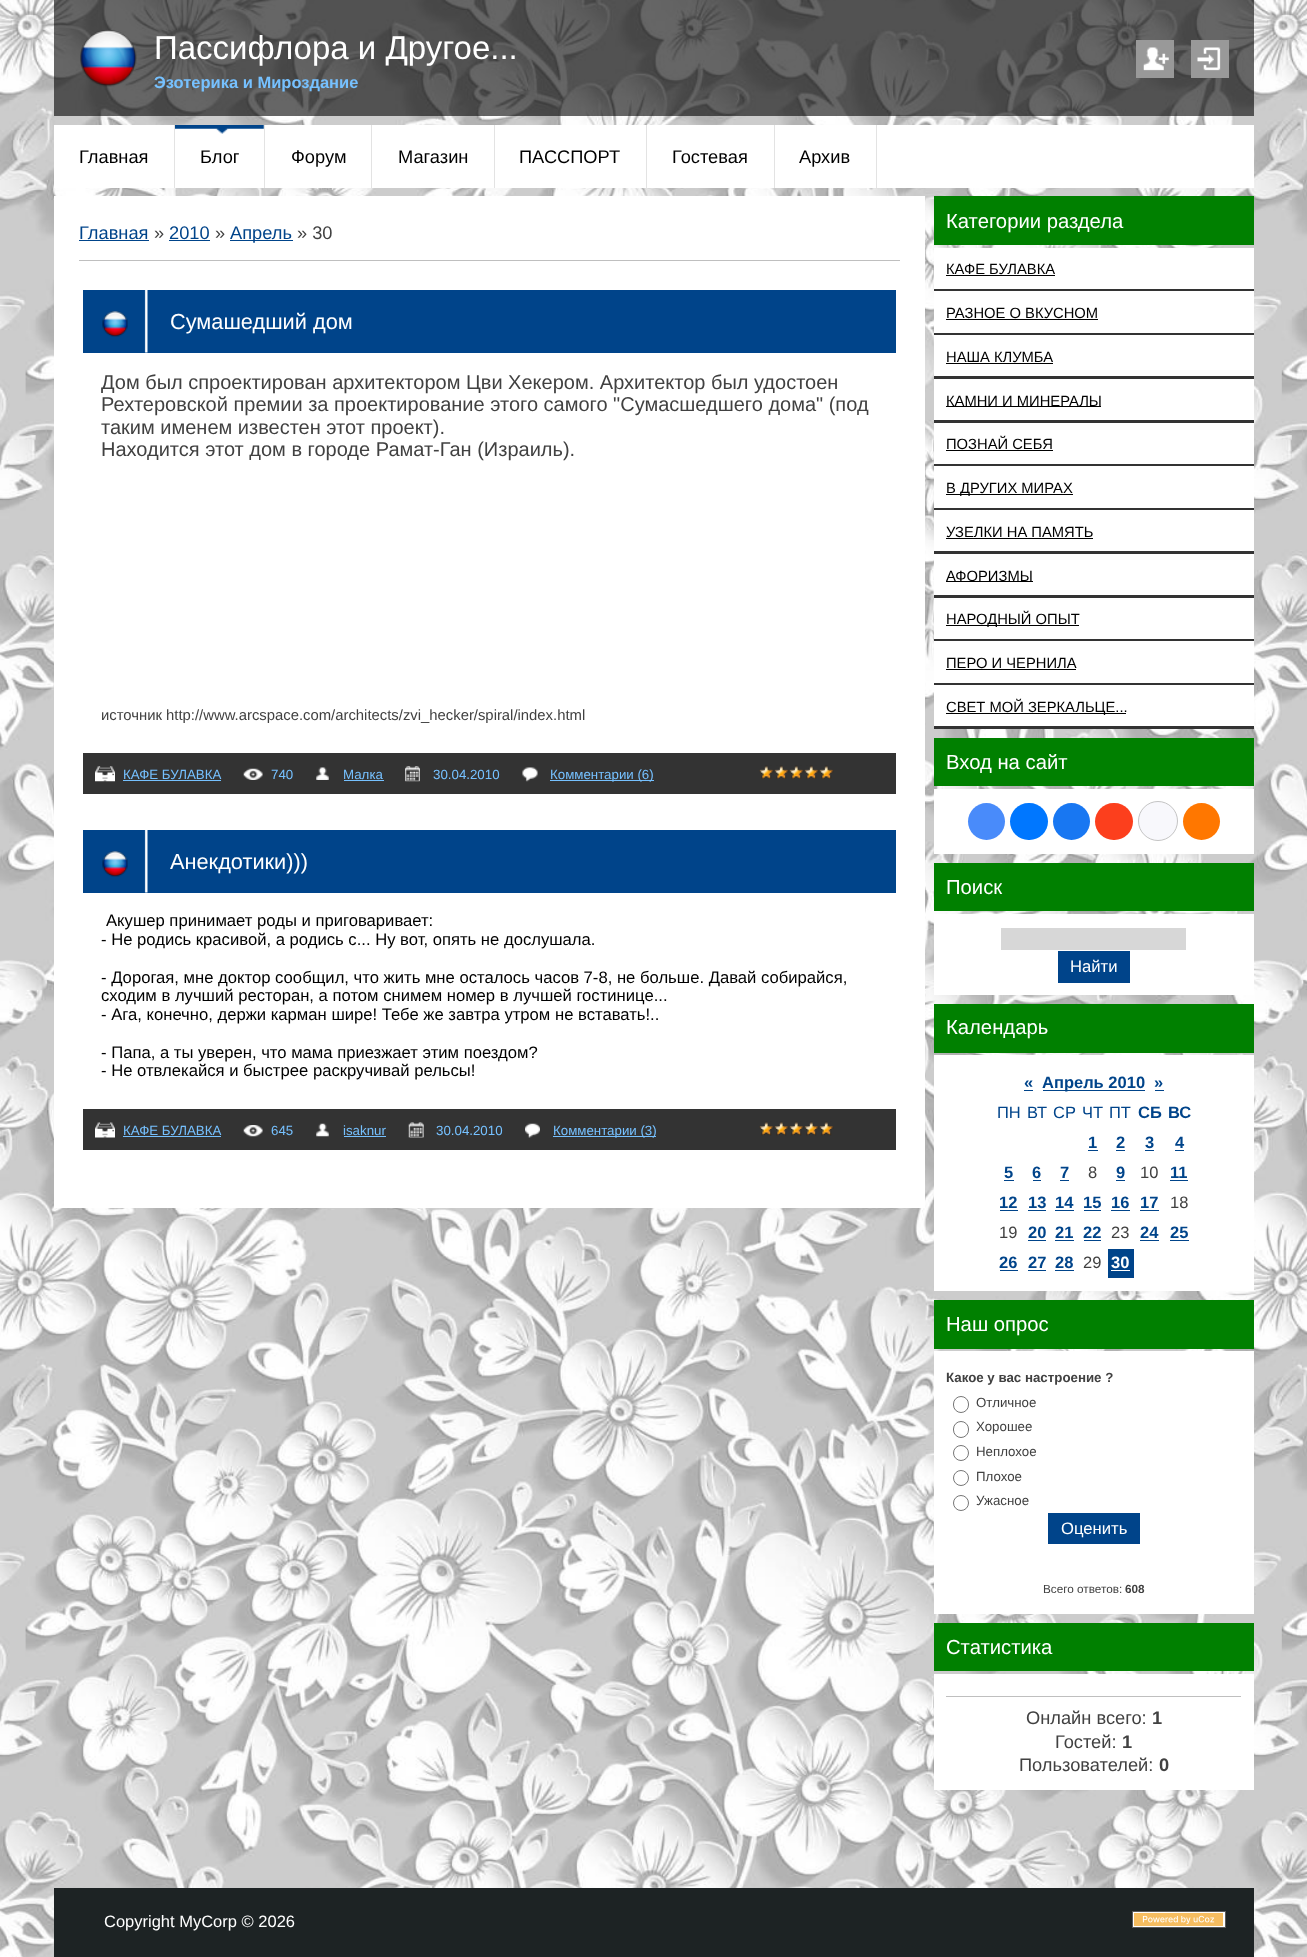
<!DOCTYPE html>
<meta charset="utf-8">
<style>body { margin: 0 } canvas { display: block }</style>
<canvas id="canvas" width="1307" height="1957"></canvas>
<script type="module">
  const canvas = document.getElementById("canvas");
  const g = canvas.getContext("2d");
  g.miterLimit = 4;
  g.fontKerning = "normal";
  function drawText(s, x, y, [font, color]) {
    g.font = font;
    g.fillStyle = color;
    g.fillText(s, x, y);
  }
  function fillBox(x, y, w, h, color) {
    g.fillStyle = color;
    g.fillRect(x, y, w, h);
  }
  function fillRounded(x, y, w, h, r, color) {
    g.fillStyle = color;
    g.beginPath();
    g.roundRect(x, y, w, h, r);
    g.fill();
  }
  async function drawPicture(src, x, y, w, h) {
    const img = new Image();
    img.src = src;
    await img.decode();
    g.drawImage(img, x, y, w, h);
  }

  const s1 = ["33px Liberation Sans", "#FFFFFF"];
  const s2 = ["bold 16.5px Liberation Sans", "#76C1FF"];
  const s3 = ["18.25px Liberation Sans", "#000000"];
  const s4 = ["18.25px Liberation Sans", "#00448A"];
  const s5 = ["18.25px Liberation Sans", "#414141"];
  const s6 = ["21.75px Liberation Sans", "#FFFFFF"];
  const s7 = ["20px Liberation Sans", "#414141"];
  const s8 = ["14.85px Liberation Sans", "#414141"];
  const s9 = ["13.3px Liberation Sans", "#76C1FF"];
  const s10 = ["16.65px Liberation Sans", "#000000"];
  const s11 = ["20.25px Liberation Sans", "#FFFFFF"];
  const s12 = ["14.75px Liberation Sans", "#000000"];
  const s13 = ["16.65px Liberation Sans", "#FFFFFF"];
  const s14 = ["bold 16.5px Liberation Sans", "#00448A"];
  const s15 = ["16.5px Liberation Sans", "#00448A"];
  const s16 = ["16.5px Liberation Sans", "#414141"];
  const s17 = ["bold 16.5px Liberation Sans", "#FFFFFF"];
  const s18 = ["bold 13.3px Liberation Sans", "#414141"];
  const s19 = ["13.3px Liberation Sans", "#414141"];
  const s20 = ["11.75px Liberation Sans", "#414141"];
  const s21 = ["bold 11.75px Liberation Sans", "#414141"];
  const s22 = ["bold 18.25px Liberation Sans", "#414141"];
  const s23 = ["16.5px Liberation Sans", "#FFFFFF"];

  fillBox(0, 0, 1307, 1957, "#FFFFFF");
  await drawPicture("pic1.png", 0, 0, 1307, 1957);
  fillBox(54, 0, 1200, 116, "rgba(0, 0, 0, 0.6)");
  await drawPicture("pic2.png", 80, 30, 57, 57);
  drawText("Пассифлора и Другое...", 154, 59, s1);
  drawText("Эзотерика и Мироздание", 154, 88, s2);
  fillBox(1136, 40, 38, 38, "#999999");
  await drawPicture("pic3.png", 1143, 47, 26, 24);
  fillBox(1191, 40, 38, 38, "#999999");
  await drawPicture("pic4.png", 1197, 47, 24, 24);
  fillBox(54, 125, 1200, 63, "#FFFFFF");
  drawText("Главная", 79, 163, s3);
  fillBox(174, 125, 1, 63, "#E3E3E3");
  await drawPicture("pic5.png", 175, 125, 89, 9);
  drawText("Блог", 200, 163, s3);
  fillBox(264, 125, 1, 63, "#E3E3E3");
  drawText("Форум", 291, 163, s3);
  fillBox(371, 125, 1, 63, "#E3E3E3");
  drawText("Магазин", 398, 163, s3);
  fillBox(494, 125, 1, 63, "#E3E3E3");
  drawText("ПАССПОРТ", 519, 163, s3);
  fillBox(646, 125, 1, 63, "#E3E3E3");
  drawText("Гостевая", 672, 163, s3);
  fillBox(876, 125, 1, 63, "#E3E3E3");
  fillBox(774, 125, 1, 63, "#E3E3E3");
  drawText("Архив", 799, 163, s3);
  fillBox(54, 196, 871, 1012, "#FFFFFF");
  drawText("Главная", 79, 239, s4);
  fillBox(79, 240, 70, 1, "#00448A");
  drawText("»", 154, 239, s5);
  drawText("2010", 169, 239, s4);
  fillBox(169, 240, 41, 1, "#00448A");
  drawText("»", 215, 239, s5);
  fillBox(230, 240, 63, 1, "#00448A");
  drawText("Апрель", 230, 239, s4);
  drawText("» 30", 297, 239, s5);
  fillBox(79, 260, 821, 1, "#BFBFBF");
  fillBox(83, 290, 813, 63, "#00448A");
  await drawPicture("pic6.png", 102, 290, 46, 63);
  drawText("Сумашедший дом", 170, 329, s6);
  drawText("Дом был спроектирован архитектором Цви Хекером. Архитектор был удостоен", 101, 389, s7);
  drawText("Рехтеровской премии за проектирование этого самого \"Сумасшедшего дома\" (под", 101, 411, s7);
  drawText("таким именем известен этот проект).", 101, 434, s7);
  drawText("Находится этот дом в городе Рамат-Ган (Израиль).", 101, 456, s7);
  drawText("источник http://www.arcspace.com/architects/zvi_hecker/spiral/index.html", 101, 720, s8);
  fillBox(83, 753, 813, 41, "#333333");
  await drawPicture("pic7.png", 95, 766, 20, 16);
  drawText("КАФЕ БУЛАВКА", 123, 779, s9);
  fillBox(123, 780, 98, 1, "#76C1FF");
  await drawPicture("pic8.png", 243, 768, 20, 12);
  drawText("740", 271, 779, s9);
  await drawPicture("pic9.png", 316, 767, 13, 13);
  drawText("Малка", 343, 779, s9);
  fillBox(344, 780, 40, 1, "#76C1FF");
  await drawPicture("pic10.png", 405, 766, 15, 16);
  drawText("30.04.2010", 433, 779, s9);
  await drawPicture("pic11.png", 522, 767, 16, 15);
  fillBox(550, 780, 104, 1, "#76C1FF");
  drawText("Комментарии (6)", 550, 779, s9);
  await drawPicture("pic12.png", 760, 766, 73, 12);
  await drawPicture("pic13.png", 759, 765, 75, 14);
  fillBox(83, 830, 813, 63, "#00448A");
  await drawPicture("pic14.png", 102, 830, 46, 63);
  drawText("Анекдотики)))", 170, 869, s6);
  drawText("Акушер принимает роды и приговаривает:", 106, 926, s10);
  drawText("- Не родись красивой, а родись с... Ну вот, опять не дослушала.", 101, 945, s10);
  drawText("- Дорогая, мне доктор сообщил, что жить мне осталось часов 7-8, не больше. Давай собирайся,", 101, 983, s10);
  drawText("сходим в лучший ресторан, а потом снимем номер в лучшей гостинице...", 101, 1001, s10);
  drawText("- Ага, конечно, держи карман шире! Тебе же завтра утром не вставать!..", 101, 1020, s10);
  drawText("- Папа, а ты уверен, что мама приезжает этим поездом?", 101, 1058, s10);
  drawText("- Не отвлекайся и быстрее раскручивай рельсы!", 101, 1076, s10);
  fillBox(83, 1109, 813, 41, "#333333");
  await drawPicture("pic15.png", 95, 1122, 20, 16);
  drawText("КАФЕ БУЛАВКА", 123, 1135, s9);
  fillBox(123, 1136, 98, 1, "#76C1FF");
  await drawPicture("pic16.png", 243, 1125, 20, 12);
  drawText("645", 271, 1135, s9);
  await drawPicture("pic17.png", 316, 1123, 13, 14);
  drawText("isaknur", 343, 1135, s9);
  fillBox(344, 1136, 42, 1, "#76C1FF");
  await drawPicture("pic18.png", 408, 1122, 16, 16);
  drawText("30.04.2010", 436, 1135, s9);
  await drawPicture("pic19.png", 525, 1123, 15, 15);
  fillBox(553, 1136, 103, 1, "#76C1FF");
  drawText("Комментарии (3)", 553, 1135, s9);
  await drawPicture("pic20.png", 760, 1122, 73, 13);
  await drawPicture("pic21.png", 759, 1121, 75, 15);
  fillBox(934, 196, 320, 49, "#008000");
  drawText("Категории раздела", 946, 228, s11);
  fillBox(934, 248, 320, 391, "#FFFFFF");
  fillBox(934, 289, 320, 2, "#333333");
  drawText("КАФЕ БУЛАВКА", 946, 274, s12);
  fillBox(946, 275, 109, 1, "#000000");
  fillBox(934, 333, 320, 2, "#333333");
  drawText("РАЗНОЕ О ВКУСНОМ", 946, 318, s12);
  fillBox(946, 319, 152, 1, "#000000");
  fillBox(934, 376, 320, 3, "#333333");
  drawText("НАША КЛУМБА", 946, 362, s12);
  fillBox(946, 363, 107, 1, "#000000");
  fillBox(934, 420, 320, 3, "#333333");
  fillBox(946, 406, 155, 1, "#000000");
  drawText("КАМНИ И МИНЕРАЛЫ", 946, 406, s12);
  fillBox(934, 464, 320, 2, "#333333");
  drawText("ПОЗНАЙ СЕБЯ", 946, 449, s12);
  fillBox(946, 450, 107, 1, "#000000");
  fillBox(934, 508, 320, 2, "#333333");
  fillBox(946, 494, 127, 1, "#000000");
  drawText("В ДРУГИХ МИРАХ", 946, 493, s12);
  fillBox(934, 551, 320, 3, "#333333");
  drawText("УЗЕЛКИ НА ПАМЯТЬ", 946, 537, s12);
  fillBox(946, 538, 147, 1, "#000000");
  fillBox(934, 595, 320, 3, "#333333");
  fillBox(946, 581, 87, 1, "#000000");
  drawText("АФОРИЗМЫ", 946, 581, s12);
  fillBox(934, 639, 320, 2, "#333333");
  fillBox(946, 625, 133, 1, "#000000");
  drawText("НАРОДНЫЙ ОПЫТ", 946, 624, s12);
  fillBox(934, 641, 320, 42, "#FFFFFF");
  fillBox(934, 683, 320, 2, "#333333");
  drawText("ПЕРО И ЧЕРНИЛА", 946, 668, s12);
  fillBox(946, 669, 130, 1, "#000000");
  fillBox(934, 685, 320, 41, "#FFFFFF");
  fillBox(934, 726, 320, 3, "#333333");
  fillBox(946, 713, 180, 1, "#000000");
  drawText("СВЕТ МОЙ ЗЕРКАЛЬЦЕ...", 946, 712, s12);
  fillBox(934, 738, 320, 48, "#008000");
  drawText("Вход на сайт", 946, 769, s11);
  fillBox(934, 789, 320, 65, "#FFFFFF");
  g.fillStyle = "#498BFA";
  g.beginPath();
  g.arc(986.5, 821.5, 18.5, 0, Math.PI * 2);
  g.fill();
  fillRounded(1010, 803, 38, 37, 18.5, "#0077FF");
  g.fillStyle = "#1877F2";
  g.beginPath();
  g.arc(1071.5, 821.5, 18.5, 0, Math.PI * 2);
  g.fill();
  fillRounded(1095, 803, 38, 37, 18.5, "#FC3F1D");
  g.fillStyle = "#F8F8FC";
  g.beginPath();
  g.arc(1158, 821, 19.5, 0, Math.PI * 2);
  g.fill();
  g.strokeStyle = "#C4C4C4";
  g.stroke();
  g.fillStyle = "#FF7700";
  g.beginPath();
  g.arc(1201.5, 821.5, 18.5, 0, Math.PI * 2);
  g.fill();
  fillBox(934, 863, 320, 48, "#008000");
  drawText("Поиск", 946, 894, s11);
  fillBox(934, 914, 320, 81, "#FFFFFF");
  fillBox(1001, 928, 185, 22, "#D7D7D7");
  fillBox(1058, 951, 72, 32, "#00448A");
  drawText("Найти", 1070, 972, s13);
  fillBox(934, 1004, 320, 49, "#008000");
  drawText("Календарь", 946, 1034, s11);
  fillBox(934, 1055, 320, 236, "#FFFFFF");
  drawText("«", 1024, 1088, s14);
  fillBox(1024, 1090, 9, 1, "#00448A");
  fillBox(1043, 1090, 102, 1, "#00448A");
  drawText("Апрель 2010", 1042, 1088, s14);
  drawText("»", 1154, 1088, s14);
  fillBox(1155, 1090, 9, 1, "#00448A");
  drawText("ПН", 997, 1118, s15);
  drawText("ВТ", 1027, 1118, s15);
  drawText("СР", 1053, 1118, s15);
  drawText("ЧТ", 1082, 1118, s15);
  drawText("ПТ", 1109, 1118, s15);
  drawText("СБ", 1138, 1118, s14);
  drawText("ВС", 1168, 1118, s14);
  drawText("1", 1088, 1148, s14);
  fillBox(1088, 1150, 10, 1, "#00448A");
  drawText("2", 1116, 1148, s14);
  fillBox(1116, 1150, 9, 1, "#00448A");
  drawText("3", 1145, 1148, s14);
  fillBox(1145, 1150, 9, 1, "#00448A");
  drawText("4", 1175, 1148, s14);
  fillBox(1175, 1150, 9, 1, "#00448A");
  drawText("5", 1004, 1178, s14);
  fillBox(1004, 1180, 10, 1, "#00448A");
  drawText("6", 1032, 1178, s14);
  fillBox(1033, 1180, 8, 1, "#00448A");
  drawText("7", 1060, 1178, s14);
  fillBox(1060, 1180, 9, 1, "#00448A");
  drawText("8", 1088, 1178, s16);
  drawText("9", 1116, 1178, s14);
  fillBox(1116, 1180, 9, 1, "#00448A");
  drawText("10", 1140, 1178, s16);
  drawText("11", 1170, 1178, s14);
  fillBox(1170, 1180, 18, 1, "#00448A");
  drawText("12", 999, 1208, s14);
  fillBox(1000, 1210, 18, 1, "#00448A");
  drawText("13", 1028, 1208, s14);
  fillBox(1028, 1210, 18, 1, "#00448A");
  drawText("14", 1055, 1208, s14);
  fillBox(1055, 1210, 19, 1, "#00448A");
  drawText("15", 1083, 1208, s14);
  fillBox(1084, 1210, 17, 1, "#00448A");
  drawText("16", 1111, 1208, s14);
  fillBox(1111, 1210, 19, 1, "#00448A");
  drawText("17", 1140, 1208, s14);
  fillBox(1140, 1210, 19, 1, "#00448A");
  drawText("18", 1170, 1208, s16);
  drawText("19", 999, 1238, s16);
  drawText("20", 1028, 1238, s14);
  fillBox(1028, 1240, 18, 1, "#00448A");
  drawText("21", 1055, 1238, s14);
  fillBox(1055, 1240, 19, 1, "#00448A");
  drawText("22", 1083, 1238, s14);
  fillBox(1084, 1240, 17, 1, "#00448A");
  drawText("23", 1111, 1238, s16);
  drawText("24", 1140, 1238, s14);
  fillBox(1140, 1240, 19, 1, "#00448A");
  drawText("25", 1170, 1238, s14);
  fillBox(1170, 1240, 19, 1, "#00448A");
  drawText("26", 999, 1268, s14);
  fillBox(1000, 1270, 18, 1, "#00448A");
  drawText("27", 1028, 1268, s14);
  fillBox(1028, 1270, 18, 1, "#00448A");
  drawText("28", 1055, 1268, s14);
  fillBox(1055, 1270, 19, 1, "#00448A");
  drawText("29", 1083, 1268, s16);
  fillBox(1108, 1249, 26, 29, "#00448A");
  drawText("30", 1111, 1268, s17);
  fillBox(1111, 1270, 19, 1, "#FFFFFF");
  fillBox(934, 1300, 320, 49, "#008000");
  drawText("Наш опрос", 946, 1331, s11);
  fillBox(934, 1351, 320, 263, "#FFFFFF");
  drawText("Какое у вас настроение ?", 946, 1382, s18);
  g.beginPath();
  g.roundRect(953.5, 1396.5, 15, 16, 7.5);
  g.strokeStyle = "#767676";
  g.stroke();
  drawText("Отличное", 976, 1407, s19);
  g.beginPath();
  g.roundRect(953.5, 1421.5, 15, 16, 7.5);
  g.stroke();
  drawText("Хорошее", 976, 1431, s19);
  g.beginPath();
  g.arc(961, 1453, 7.5, 0, Math.PI * 2);
  g.stroke();
  drawText("Неплохое", 976, 1456, s19);
  g.beginPath();
  g.arc(961, 1478, 7.5, 0, Math.PI * 2);
  g.stroke();
  drawText("Плохое", 976, 1481, s19);
  g.beginPath();
  g.arc(961, 1503, 7.5, 0, Math.PI * 2);
  g.stroke();
  drawText("Ужасное", 976, 1505, s19);
  fillBox(1048, 1513, 92, 31, "#00448A");
  drawText("Оценить", 1061, 1534, s13);
  drawText("Всего ответов:", 1043, 1593, s20);
  drawText("608", 1125, 1593, s21);
  fillBox(934, 1623, 320, 48, "#008000");
  drawText("Статистика", 946, 1654, s11);
  fillBox(934, 1674, 320, 116, "#FFFFFF");
  fillBox(946, 1696, 295, 1, "#BFBFBF");
  drawText("Онлайн всего:", 1026, 1724, s5);
  drawText("1", 1152, 1724, s22);
  drawText("Гостей:", 1055, 1748, s5);
  drawText("1", 1122, 1748, s22);
  drawText("Пользователей:", 1019, 1771, s5);
  drawText("0", 1159, 1771, s22);
  fillBox(54, 1888, 1200, 69, "#1D2324");
  drawText("Copyright MyCorp © 2026", 104, 1927, s23);
  await drawPicture("pic22.png", 1132, 1911, 94, 17);
</script>
